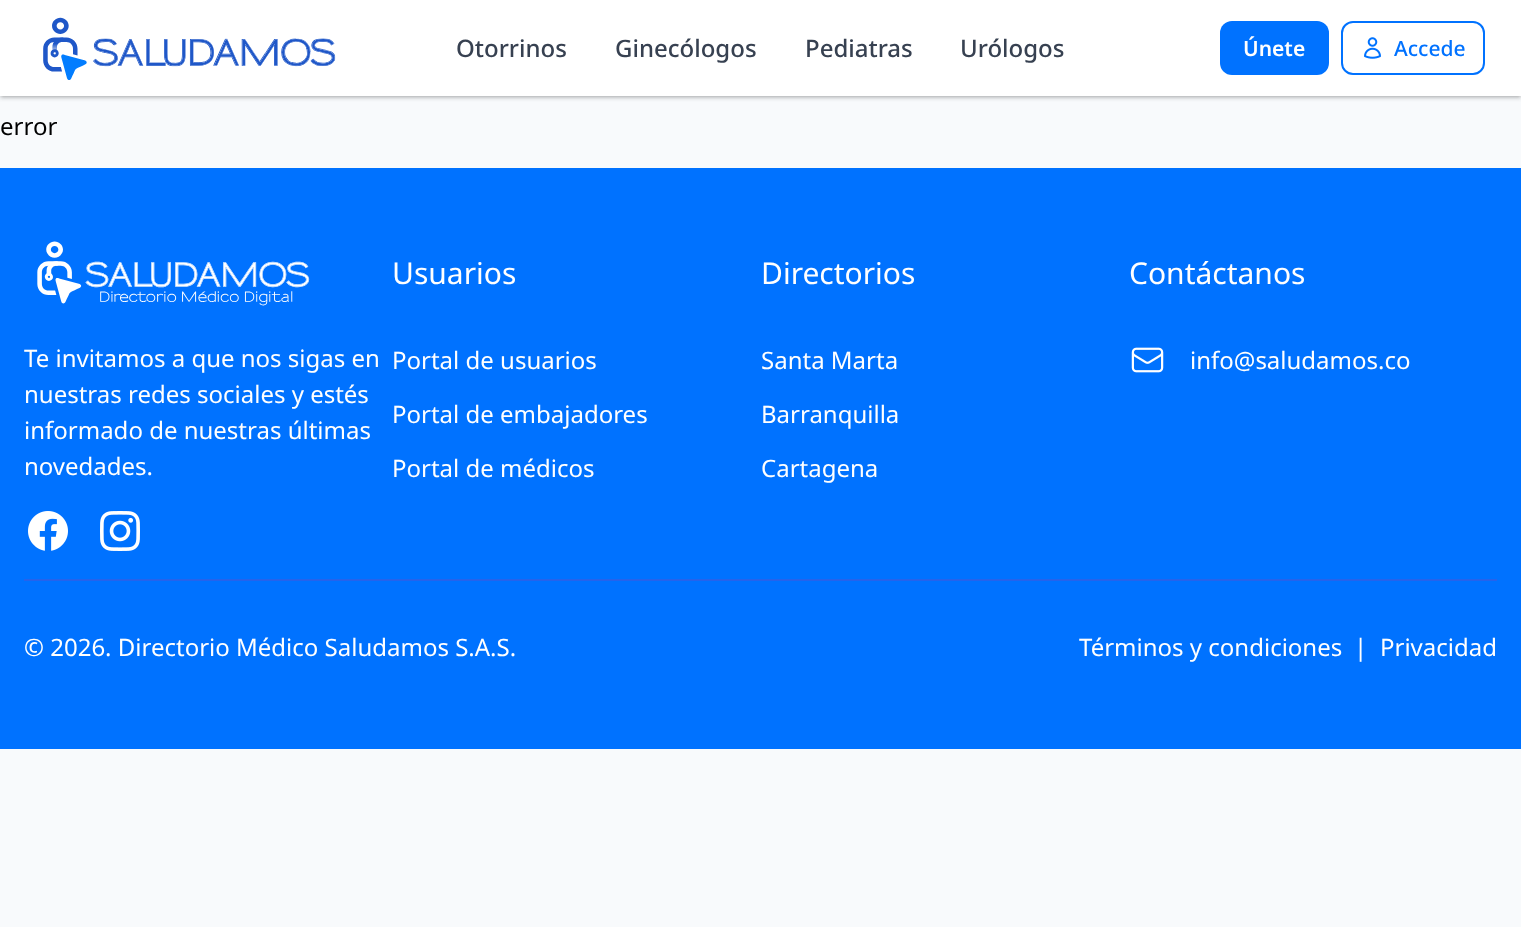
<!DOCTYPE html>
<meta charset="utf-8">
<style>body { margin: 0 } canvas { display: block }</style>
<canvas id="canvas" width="1521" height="927"></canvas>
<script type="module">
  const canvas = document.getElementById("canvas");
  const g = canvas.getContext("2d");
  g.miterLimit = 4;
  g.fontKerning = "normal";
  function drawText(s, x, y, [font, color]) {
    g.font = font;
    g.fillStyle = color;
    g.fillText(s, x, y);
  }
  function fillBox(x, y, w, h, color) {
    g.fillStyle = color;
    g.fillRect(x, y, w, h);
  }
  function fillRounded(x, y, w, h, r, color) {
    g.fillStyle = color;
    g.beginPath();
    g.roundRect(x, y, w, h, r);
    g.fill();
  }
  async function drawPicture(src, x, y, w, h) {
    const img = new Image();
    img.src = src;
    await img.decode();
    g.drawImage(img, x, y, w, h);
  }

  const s1 = ["500 24px Noto Sans", "#374151"];
  const s2 = ["600 21px Noto Sans", "#FFFFFF"];
  const s3 = ["500 21px Noto Sans", "#0072FF"];
  const s4 = ["24px Noto Sans", "#000000"];
  const s5 = ["30px Noto Sans", "#FFFFFF"];
  const s6 = ["24px Noto Sans", "#FFFFFF"];

  fillBox(0, 0, 1521, 927, "#F8FAFC");
  g.fillStyle = "rgba(0, 0, 0, 0.1)";
  g.filter = "blur(1.5px)";
  g.beginPath();
  g.rect(2, 3, 1518, 93);
  g.fill();
  g.filter = "none";
  g.filter = "blur(2px)";
  g.beginPath();
  g.rect(0, 2, 1521, 96);
  g.fill();
  g.filter = "none";
  g.filter = "blur(1.5px)";
  g.beginPath();
  g.rect(2, 3, 1518, 93);
  g.fill();
  g.filter = "none";
  g.filter = "blur(2px)";
  g.beginPath();
  g.rect(0, 2, 1521, 96);
  g.fill();
  g.filter = "none";
  fillBox(0, 0, 1521, 96, "#FFFFFF");
  await drawPicture("pic1.png", 43, 17, 293, 63);
  drawText("Otorrinos", 456, 57, s1);
  drawText("Ginecólogos", 615, 57, s1);
  drawText("Pediatras", 805, 57, s1);
  drawText("Urólogos", 960, 57, s1);
  fillRounded(1220, 21, 109, 54, 12, "#0072FF");
  drawText("Únete", 1243, 56, s2);
  g.beginPath();
  g.roundRect(1342, 22, 142, 52, 11);
  g.strokeStyle = "#0072FF";
  g.lineWidth = 2;
  g.stroke();
  await drawPicture("pic2.png", 1364, 37, 17, 22);
  drawText("Accede", 1394, 56, s3);
  drawText("error", 0, 135, s4);
  fillBox(0, 168, 1521, 581, "#0072FF");
  drawText("Usuarios", 392, 284, s5);
  drawText("Portal de usuarios", 392, 369, s6);
  drawText("Portal de embajadores", 392, 423, s6);
  drawText("Portal de médicos", 392, 477, s6);
  drawText("Directorios", 761, 284, s5);
  drawText("Santa Marta", 761, 369, s6);
  drawText("Barranquilla", 761, 423, s6);
  drawText("Cartagena", 761, 477, s6);
  drawText("Contáctanos", 1129, 284, s5);
  await drawPicture("pic3.png", 1131, 347, 33, 26);
  drawText("info@saludamos.co", 1190, 369, s6);
  await drawPicture("pic4.png", 37, 241, 273, 65);
  drawText("Te invitamos a que nos sigas en", 24, 367, s6);
  drawText("nuestras redes sociales y estés", 24, 403, s6);
  drawText("informado de nuestras últimas", 24, 439, s6);
  drawText("novedades.", 24, 475, s6);
  await drawPicture("pic5.png", 28, 511, 40, 40);
  await drawPicture("pic6.png", 100, 511, 40, 40);
  fillBox(24, 579, 1473, 2, "#2563EB");
  drawText("© 2026. Directorio Médico Saludamos S.A.S.", 24, 656, s6);
  drawText("Términos y condiciones", 1079, 656, s6);
  drawText("|", 1354, 656, s6);
  drawText("Privacidad", 1380, 656, s6);
</script>
